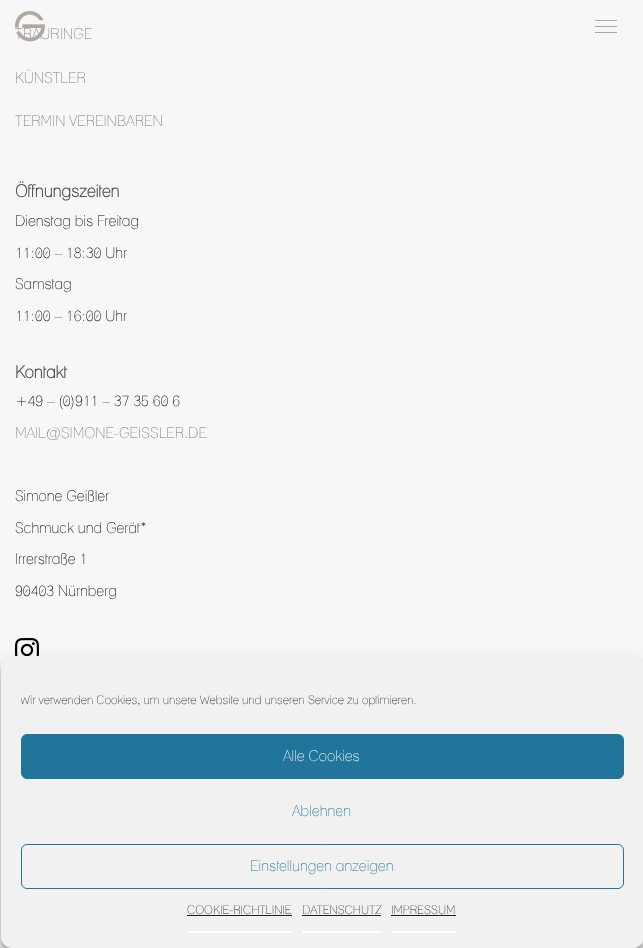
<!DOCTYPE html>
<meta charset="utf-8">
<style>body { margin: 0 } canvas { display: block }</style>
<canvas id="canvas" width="643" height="948"></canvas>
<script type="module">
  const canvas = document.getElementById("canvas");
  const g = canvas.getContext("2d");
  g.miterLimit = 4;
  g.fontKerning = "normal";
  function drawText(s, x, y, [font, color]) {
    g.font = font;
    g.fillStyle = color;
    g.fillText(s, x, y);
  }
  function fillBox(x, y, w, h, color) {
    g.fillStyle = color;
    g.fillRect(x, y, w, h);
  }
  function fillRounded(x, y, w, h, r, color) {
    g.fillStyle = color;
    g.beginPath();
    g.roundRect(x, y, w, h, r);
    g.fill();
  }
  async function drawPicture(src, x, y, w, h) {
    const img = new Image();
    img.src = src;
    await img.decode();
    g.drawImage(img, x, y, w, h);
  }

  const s1 = ["15px 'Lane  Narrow'", "#7C7C7C"];
  const s2 = ["bold 17px 'Lane  Narrow'", "#4C4E56"];
  const s3 = ["15px 'Lane  Narrow'", "#000000"];
  const s4 = ["12px 'Lane  Narrow'", "#191E23"];
  const s5 = ["15px 'Lane  Narrow'", "#FFFFFF"];
  const s6 = ["15px 'Lane  Narrow'", "#21759B"];

  fillBox(0, 0, 643, 948, "#F7F7F7");
  drawText("TRAURINGE", 15, 39, s1);
  await drawPicture("pic1.png", 15, 11, 30, 31);
  fillBox(595, 20, 22, 1, "#AFA9A0");
  fillBox(595, 26, 22, 1, "#AFA9A0");
  fillBox(595, 32, 22, 1, "#AFA9A0");
  drawText("KÜNSTLER", 15, 83, s1);
  drawText("TERMIN VEREINBAREN", 15, 126, s1);
  drawText("Öffnungszeiten", 15, 197, s2);
  drawText("Dienstag bis Freitag", 15, 226, s3);
  drawText("11:00 – 18:30 Uhr", 15, 258, s3);
  drawText("Samstag", 15, 289, s3);
  drawText("11:00 – 16:00 Uhr", 15, 321, s3);
  drawText("Kontakt", 15, 378, s2);
  drawText("+49 – (0)911 – 37 35 60 6", 15, 406, s3);
  drawText("MAIL@SIMONE-GEISSLER.DE", 15, 438, s1);
  drawText("Simone Geißler", 15, 501, s3);
  drawText("Schmuck und Gerät*", 15, 533, s3);
  drawText("Irrerstraße 1", 15, 564, s3);
  drawText("90403 Nürnberg", 15, 596, s3);
  await drawPicture("pic2.png", 15, 638, 24, 18);
  g.save();
  g.beginPath();
  g.moveTo(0, 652);
  g.lineTo(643, 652);
  g.lineTo(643, 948);
  g.lineTo(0, 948);
  g.closePath();
  g.moveTo(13, 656);
  g.lineTo(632, 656);
  g.bezierCurveTo(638.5, 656, 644, 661.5, 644, 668);
  g.lineTo(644, 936);
  g.bezierCurveTo(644, 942.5, 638.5, 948, 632, 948);
  g.lineTo(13, 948);
  g.bezierCurveTo(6.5, 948, 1, 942.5, 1, 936);
  g.lineTo(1, 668);
  g.bezierCurveTo(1, 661.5, 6.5, 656, 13, 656);
  g.closePath();
  g.clip("evenodd");
  g.fillStyle = "rgba(0, 0, 0, 0.23)";
  g.filter = "blur(3px)";
  g.beginPath();
  g.roundRect(1, 662, 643, 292, 12);
  g.fill();
  g.filter = "none";
  g.restore();
  g.save();
  g.beginPath();
  g.moveTo(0, 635);
  g.lineTo(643, 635);
  g.lineTo(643, 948);
  g.lineTo(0, 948);
  g.closePath();
  g.moveTo(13, 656);
  g.lineTo(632, 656);
  g.bezierCurveTo(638.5, 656, 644, 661.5, 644, 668);
  g.lineTo(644, 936);
  g.bezierCurveTo(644, 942.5, 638.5, 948, 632, 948);
  g.lineTo(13, 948);
  g.bezierCurveTo(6.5, 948, 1, 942.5, 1, 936);
  g.lineTo(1, 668);
  g.bezierCurveTo(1, 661.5, 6.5, 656, 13, 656);
  g.closePath();
  g.clip("evenodd");
  g.fillStyle = "rgba(0, 0, 0, 0.19)";
  g.filter = "blur(10px)";
  g.beginPath();
  g.roundRect(1, 666, 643, 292, 12);
  g.fill();
  g.filter = "none";
  g.restore();
  fillRounded(1, 656, 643, 292, 12, "#F1F1F1");
  g.save();
  g.beginPath();
  g.rect(21, 691, 603, 23);
  g.clip();
  drawText("Wir verwenden Cookies, um unsere Website und unseren Service zu optimieren.", 20, 704, s4);
  g.restore();
  g.fillStyle = "#21759B";
  g.beginPath();
  g.roundRect(21.5, 734.5, 602, 44, 5.5);
  g.fill();
  g.strokeStyle = "#21759B";
  g.stroke();
  drawText("Alle Cookies", 283, 761, s5);
  drawText("Ablehnen", 292, 816, s6);
  g.beginPath();
  g.roundRect(21.5, 844.5, 602, 44, 5.5);
  g.stroke();
  drawText("Einstellungen anzeigen", 250, 871, s6);
  fillBox(188, 931, 104, 2, "#FFFFFF");
  drawText("COOKIE-RICHTLINIE", 187, 914, s4);
  fillBox(187, 915, 105, 1, "#191E23");
  fillBox(302, 931, 80, 2, "#FFFFFF");
  drawText("DATENSCHUTZ", 302, 914, s4);
  fillBox(302, 915, 79, 1, "#191E23");
  fillBox(392, 931, 64, 2, "#FFFFFF");
  drawText("IMPRESSUM", 391, 914, s4);
  fillBox(391, 915, 65, 1, "#191E23");
</script>
